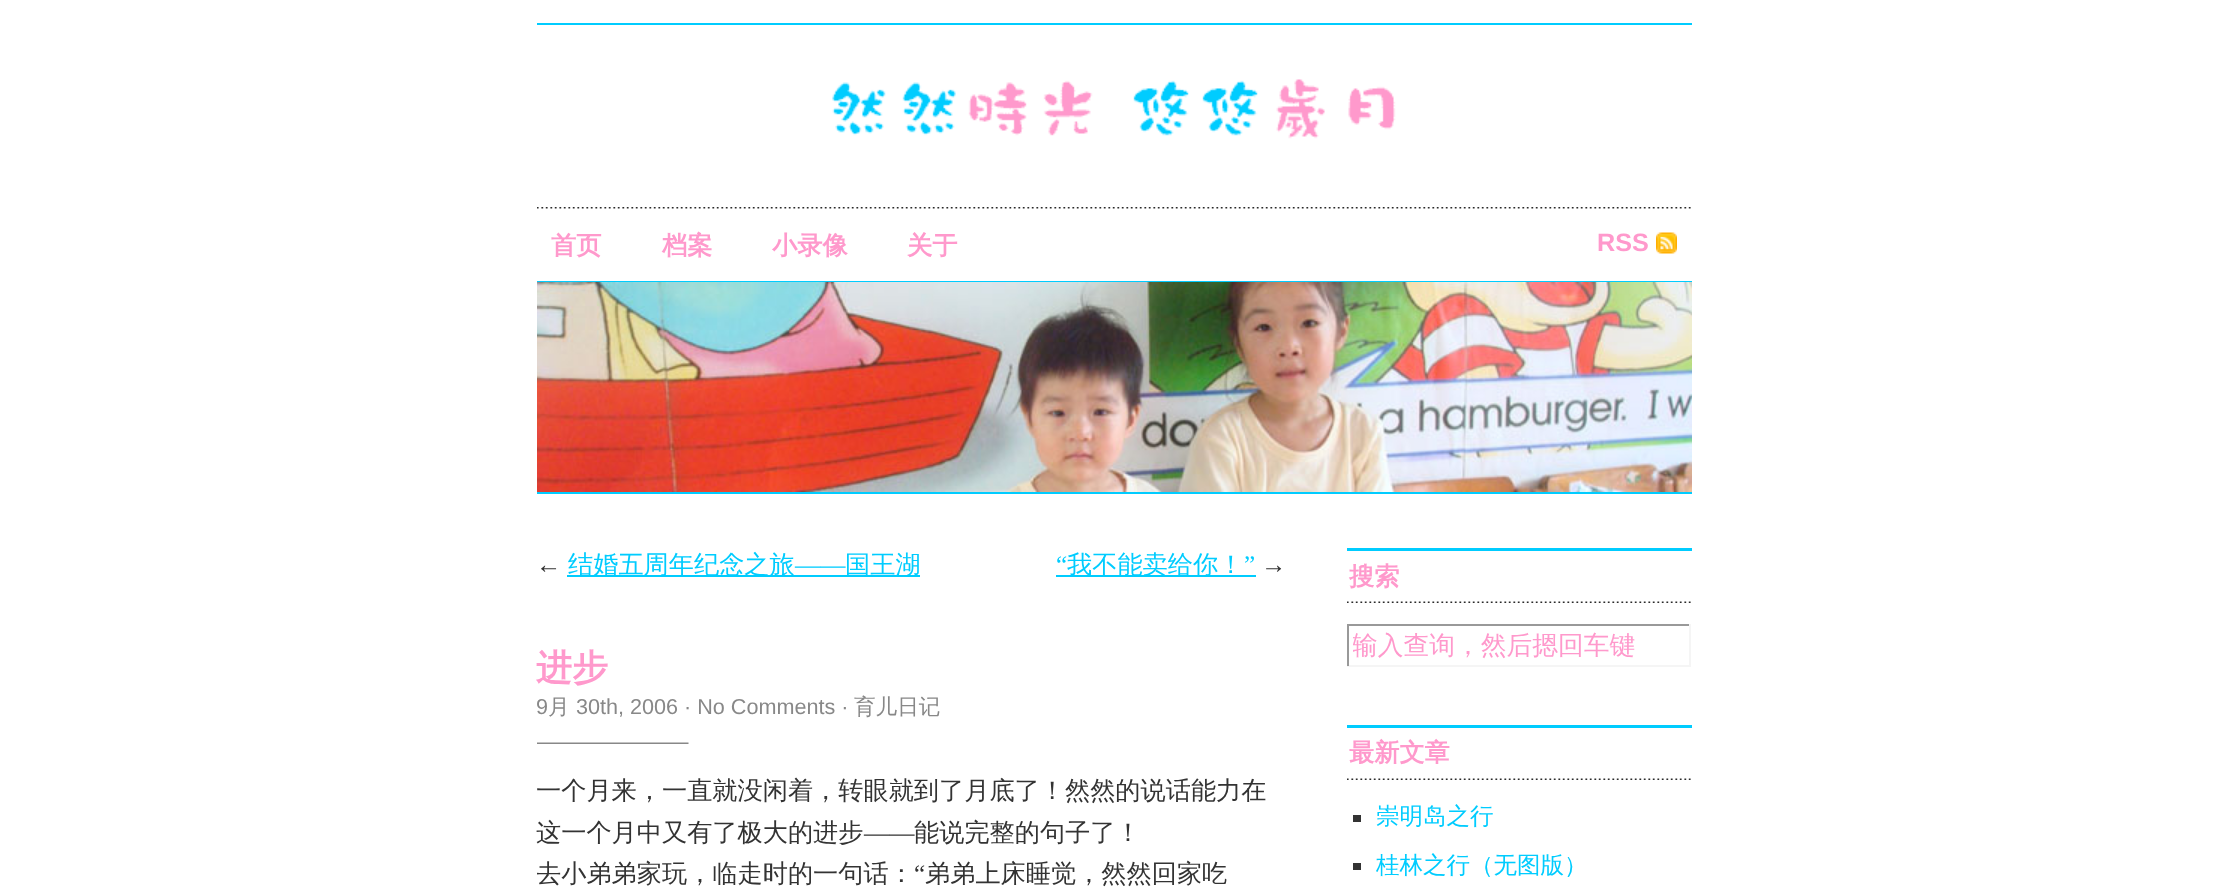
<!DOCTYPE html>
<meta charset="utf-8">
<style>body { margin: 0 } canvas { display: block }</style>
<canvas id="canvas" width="2227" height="888"></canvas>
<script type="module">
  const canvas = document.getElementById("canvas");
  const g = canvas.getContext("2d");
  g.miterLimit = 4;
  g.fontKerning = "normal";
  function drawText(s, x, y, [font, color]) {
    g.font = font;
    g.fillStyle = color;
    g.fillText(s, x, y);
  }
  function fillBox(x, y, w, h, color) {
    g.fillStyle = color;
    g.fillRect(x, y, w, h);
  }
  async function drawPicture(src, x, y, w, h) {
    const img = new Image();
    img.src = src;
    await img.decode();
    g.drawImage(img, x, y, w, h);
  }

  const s1 = ["bold 25.2px WenQuanYi Zen Hei", "#FF99CC"];
  const s2 = ["bold 25.2px Liberation Sans", "#FF99CC"];
  const s3 = ["25.2px Liberation Serif", "#333333"];
  const s4 = ["500 25.2px WenQuanYi Zen Hei", "#00CCFF"];
  const s5 = ["25.2px Liberation Serif", "#00CCFF"];
  const s6 = ["bold 36px WenQuanYi Zen Hei", "#FF99CC"];
  const s7 = ["21.6px Liberation Sans", "#888888"];
  const s8 = ["500 21.6px WenQuanYi Zen Hei", "#888888"];
  const s9 = ["500 25.2px WenQuanYi Zen Hei", "#333333"];
  const s10 = ["500 25.75px WenQuanYi Zen Hei", "#FF99CC"];
  const s11 = ["500 23.5px WenQuanYi Zen Hei", "#00CCFF"];

  fillBox(0, 0, 2227, 888, "#FFFFFF");
  fillBox(537, 23, 1155, 2, "#00CCFF");
  await drawPicture("pic1.png", 832, 79, 564, 60);
  await drawPicture("pic2.png", 537, 207, 1154, 2);
  fillBox(537, 281, 1155, 1, "#00CCFF");
  drawText("首页", 551, 254, s1);
  drawText("档案", 662, 254, s1);
  drawText("小录像", 772, 254, s1);
  drawText("关于", 907, 254, s1);
  drawText("RSS", 1597, 251, s2);
  await drawPicture("pic3.png", 1656, 232, 21, 22);
  fillBox(537, 492, 1155, 2, "#00CCFF");
  await drawPicture("pic4.png", 537, 282, 1155, 210);
  drawText("←", 536, 573, s3);
  fillBox(567, 575, 353, 2, "#00CCFF");
  drawText("结婚五周年纪念之旅", 568, 573, s4);
  drawText("——", 795, 573, s5);
  drawText("国王湖", 845, 573, s4);
  drawText("“", 1056, 573, s5);
  fillBox(1056, 575, 200, 2, "#00CCFF");
  drawText("我不能卖给你！", 1067, 573, s4);
  drawText("”", 1244, 573, s5);
  drawText("→", 1261, 573, s3);
  drawText("进步", 536, 680, s6);
  await drawPicture("pic5.png", 537, 742, 152, 2);
  drawText("9", 536, 714, s7);
  drawText("月", 548, 714, s8);
  drawText("30th, 2006 · No Comments ·", 576, 714, s7);
  drawText("育儿日记", 854, 714, s8);
  drawText("一个月来，一直就没闲着，转眼就到了月底了！然然的说话能力在", 536, 799, s9);
  drawText("这一个月中又有了极大的进步", 536, 841, s9);
  drawText("——", 864, 841, s3);
  drawText("能说完整的句子了！", 914, 841, s9);
  g.save();
  g.beginPath();
  g.rect(537, 771, 750, 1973);
  g.clip();
  drawText("去小弟弟家玩，临走时的一句话：", 536, 882, s9);
  g.restore();
  drawText("“", 914, 882, s3);
  drawText("弟弟上床睡觉，然然回家吃", 925, 882, s9);
  await drawPicture("pic6.png", 1347, 601, 344, 2);
  fillBox(1347, 548, 345, 3, "#00CCFF");
  drawText("搜索", 1349, 585, s1);
  fillBox(1347, 624, 344, 2, "#999999");
  fillBox(1689, 624, 2, 42, "#F5F5F5");
  fillBox(1347, 665, 344, 2, "#F5F5F5");
  fillBox(1347, 624, 2, 42, "#999999");
  g.save();
  g.beginPath();
  g.rect(1353, 627, 332, 36);
  g.clip();
  drawText("输入查询，然后摁回车键", 1352, 654, s10);
  g.restore();
  await drawPicture("pic6.png", 1347, 778, 344, 2);
  fillBox(1347, 725, 345, 3, "#00CCFF");
  drawText("最新文章", 1349, 761, s1);
  fillBox(1353, 815, 8, 7, "#333333");
  drawText("崇明岛之行", 1376, 824, s11);
  fillBox(1353, 863, 8, 7, "#333333");
  drawText("桂林之行（无图版）", 1376, 873, s11);
</script>
